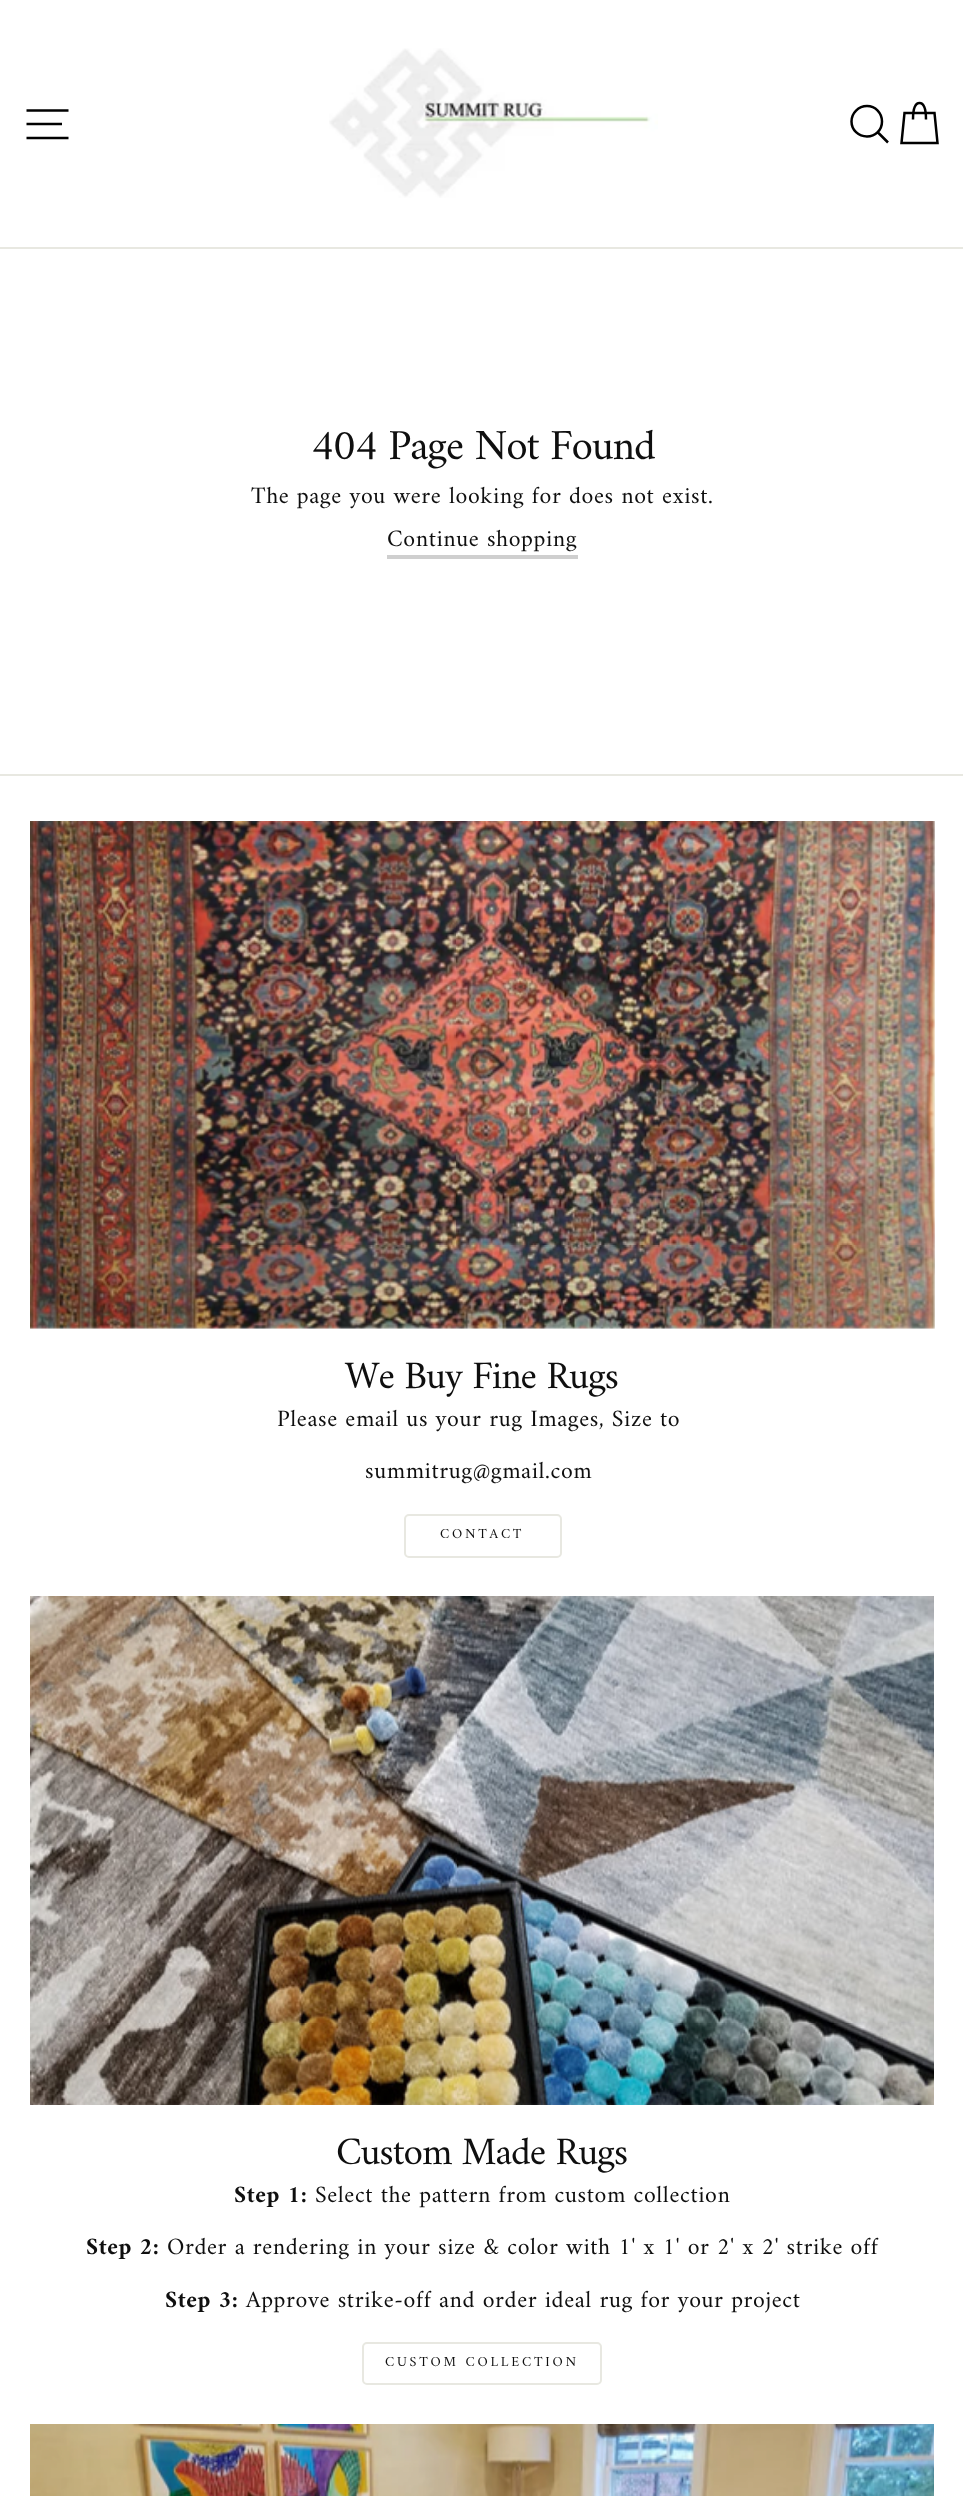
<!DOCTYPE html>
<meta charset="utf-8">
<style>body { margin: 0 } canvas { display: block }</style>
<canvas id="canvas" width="963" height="2496"></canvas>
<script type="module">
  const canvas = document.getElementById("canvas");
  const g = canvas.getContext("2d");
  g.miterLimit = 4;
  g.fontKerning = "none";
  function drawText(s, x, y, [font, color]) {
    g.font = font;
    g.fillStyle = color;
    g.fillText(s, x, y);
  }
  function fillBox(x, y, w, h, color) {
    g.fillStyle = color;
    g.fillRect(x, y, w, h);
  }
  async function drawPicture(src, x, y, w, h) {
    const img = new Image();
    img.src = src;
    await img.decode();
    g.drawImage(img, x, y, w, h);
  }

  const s1 = ["43.25px Amiri", "#0F0F0F"];
  const s2 = ["23.8px Amiri", "#0F0F0F"];
  const s3 = ["39.25px Amiri", "#0F0F0F"];
  const s4 = ["14px Amiri", "#0F0F0F"];
  const s5 = ["bold 23.8px Amiri", "#0F0F0F"];

  fillBox(0, 0, 963, 2496, "#FFFFFF");
  fillBox(0, 247, 963, 2, "#E8E8E1");
  g.beginPath();
  g.moveTo(26.5, 110.5);
  g.lineTo(68.5, 110.5);
  g.moveTo(26.5, 124);
  g.lineTo(62, 124);
  g.moveTo(26.5, 138);
  g.lineTo(68.5, 138);
  g.strokeStyle = "#000000";
  g.lineWidth = 2.5;
  g.stroke();
  await drawPicture("pic1.png", 329, 48, 329, 150);
  g.beginPath();
  g.moveTo(882, 121.5);
  g.bezierCurveTo(882, 130, 875.5, 136.5, 867, 136.5);
  g.bezierCurveTo(858.5, 136.5, 851.5, 130, 851.5, 121.5);
  g.bezierCurveTo(851.5, 113, 858.5, 106, 867, 106);
  g.bezierCurveTo(875.5, 106, 882, 113, 882, 121.5);
  g.closePath();
  g.moveTo(888, 142.5);
  g.lineTo(878, 132.5);
  g.stroke();
  g.beginPath();
  g.moveTo(913, 119.5);
  g.bezierCurveTo(913, 106.5, 916, 103, 919.5, 103);
  g.bezierCurveTo(923, 103, 926, 106.5, 926, 119.5);
  g.moveTo(904.5, 113);
  g.lineTo(934.5, 113);
  g.lineTo(937.5, 143);
  g.lineTo(901.5, 143);
  g.closePath();
  g.stroke();
  g.letterSpacing = "-1.1px";
  drawText("404 Page Not Found", 311, 459, s1);
  g.letterSpacing = "0.6px";
  drawText("The page you were looking for does not exist.", 251, 503, s2);
  fillBox(387, 555, 191, 4, "#CFCFCF");
  drawText("Continue shopping", 387, 546, s2);
  fillBox(0, 774, 963, 2, "#E8E8E1");
  await drawPicture("pic2.png", 30, 821, 905, 508);
  g.letterSpacing = "-1px";
  drawText("We Buy Fine Rugs", 345, 1388, s3);
  g.letterSpacing = "0.6px";
  drawText("Please email us your rug Images, Size to", 277, 1426, s2);
  drawText("summitrug@gmail.com", 365, 1478, s2);
  g.beginPath();
  g.roundRect(405, 1515, 156, 42, 4);
  g.strokeStyle = "#E8E8E1";
  g.lineWidth = 2;
  g.stroke();
  g.letterSpacing = "2.75px";
  drawText("CONTACT", 440, 1538, s4);
  await drawPicture("pic3.png", 30, 1596, 904, 509);
  g.letterSpacing = "-1px";
  drawText("Custom Made Rugs", 336, 2164, s3);
  g.letterSpacing = "0.6px";
  drawText("Step 1:", 234, 2202, s5);
  drawText("Select the pattern from custom collection", 315, 2202, s2);
  drawText("Step 2:", 86, 2254, s5);
  drawText("Order a rendering in your size & color with 1' x 1' or 2' x 2' strike off", 167, 2254, s2);
  drawText("Step 3:", 165, 2307, s5);
  drawText("Approve strike-off and order ideal rug for your project", 246, 2307, s2);
  g.beginPath();
  g.roundRect(363, 2343, 238, 41, 4);
  g.stroke();
  g.letterSpacing = "2.75px";
  drawText("CUSTOM COLLECTION", 385, 2366, s4);
  await drawPicture("pic4.png", 30, 2424, 904, 72);
</script>
